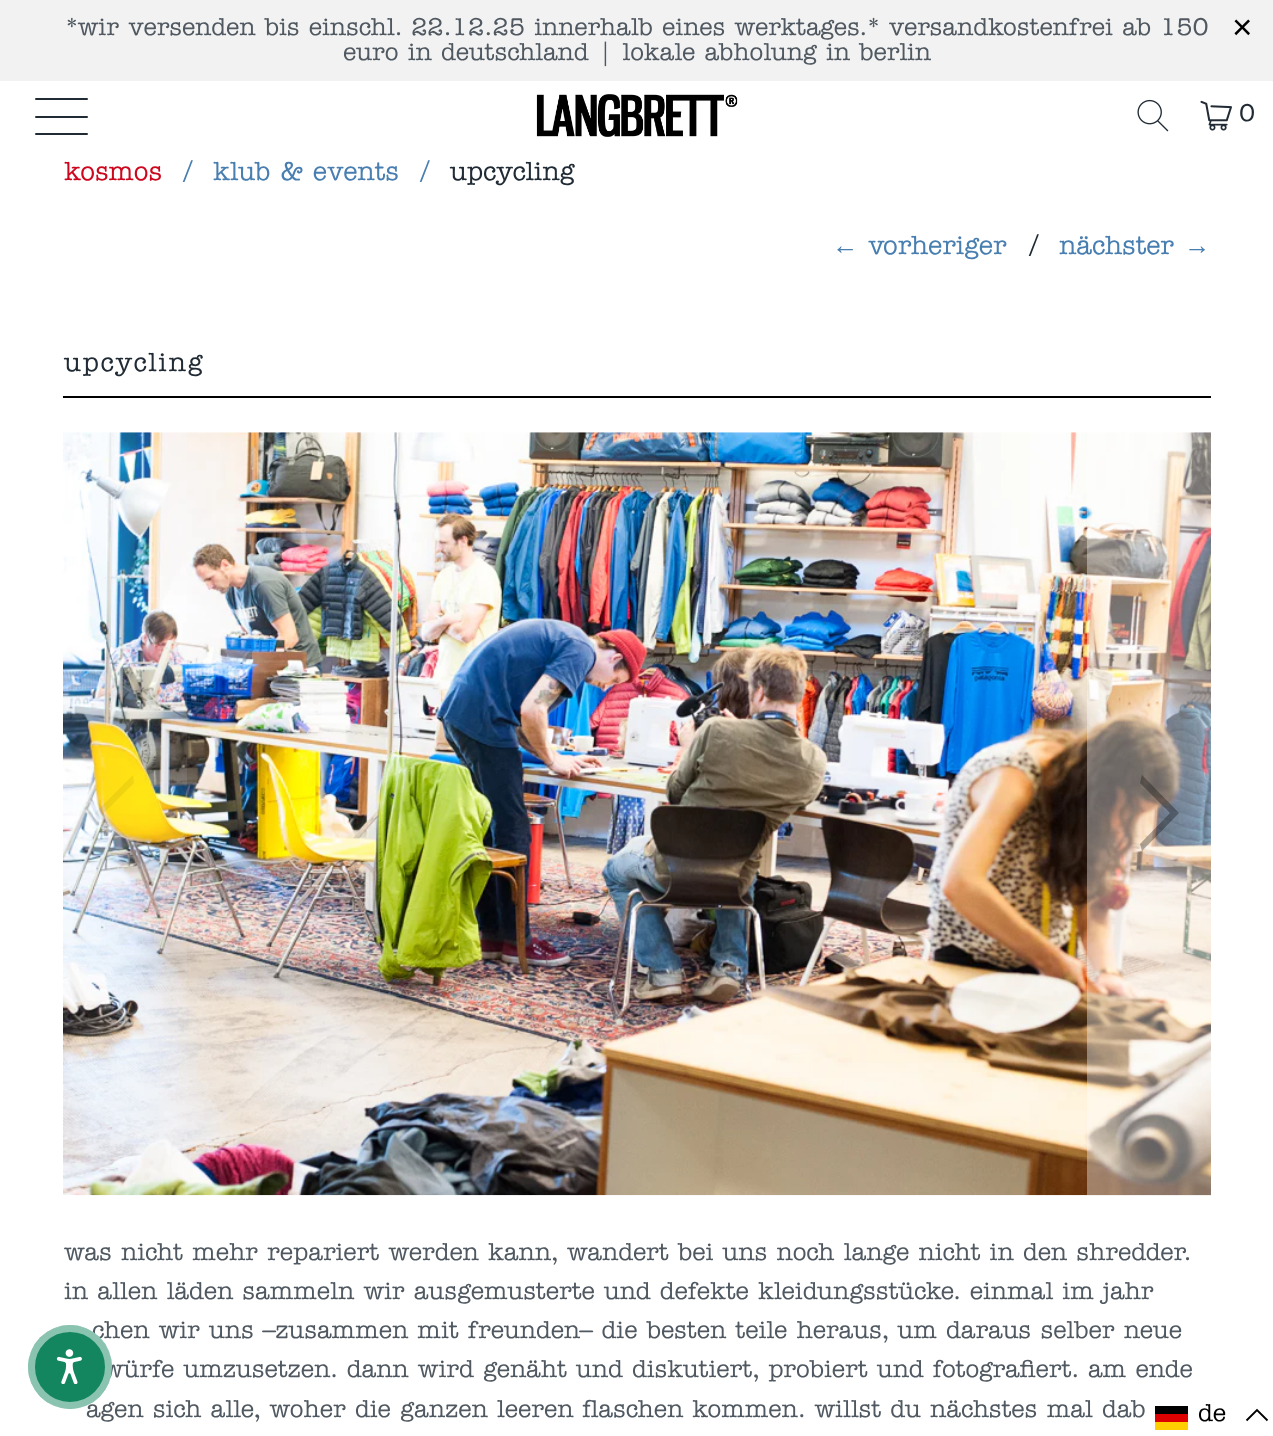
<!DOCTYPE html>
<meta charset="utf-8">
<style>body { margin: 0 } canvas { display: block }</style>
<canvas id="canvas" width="1273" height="1436"></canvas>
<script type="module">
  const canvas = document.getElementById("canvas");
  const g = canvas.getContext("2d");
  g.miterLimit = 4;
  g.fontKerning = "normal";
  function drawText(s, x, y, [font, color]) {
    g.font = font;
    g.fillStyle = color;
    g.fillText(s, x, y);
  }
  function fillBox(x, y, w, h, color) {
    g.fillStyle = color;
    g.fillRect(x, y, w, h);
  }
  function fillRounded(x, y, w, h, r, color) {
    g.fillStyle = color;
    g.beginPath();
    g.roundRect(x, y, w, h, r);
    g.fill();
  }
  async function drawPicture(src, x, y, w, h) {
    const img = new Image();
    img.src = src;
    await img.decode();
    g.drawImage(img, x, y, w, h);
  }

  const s1 = ["500 24.5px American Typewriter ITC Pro", "#505961"];
  const s2 = ["35px Liberation Sans", "#000000"];
  const s3 = ["500 24.5px American Typewriter ITC Pro", "#212B35"];
  const s4 = ["500 26.25px American Typewriter ITC Pro", "#CC071E"];
  const s5 = ["500 26.25px American Typewriter ITC Pro", "#487EB0"];
  const s6 = ["500 26.25px American Typewriter ITC Pro", "#212B35"];
  const s7 = ["26.25px Liberation Serif", "#487EB0"];
  const s8 = ["500 24.5px American Typewriter ITC Pro", "#000000"];

  fillBox(0, 0, 1273, 1436, "#FFFFFF");
  fillBox(0, 0, 1273, 81, "#F2F2F2");
  drawText("*wir versenden bis einschl. 22.12.25 innerhalb eines werktages.* versandkostenfrei ab 150", 66, 35, s1);
  drawText("euro in deutschland | lokale abholung in berlin", 343, 60, s1);
  g.letterSpacing = "1.75px";
  drawText("×", 1232, 39, s2);
  fillRounded(35, 98, 53, 2, 1, "#212B35");
  fillRounded(35, 116, 53, 2, 1, "#212B35");
  fillRounded(35, 133, 53, 2, 1, "#212B35");
  await drawPicture("pic1.png", 536, 94, 202, 43);
  await drawPicture("pic2.png", 1137, 99, 32, 33);
  await drawPicture("pic3.png", 1200, 100, 32, 31);
  drawText("0", 1239, 121, s3);
  g.letterSpacing = "0px";
  drawText("kosmos", 64, 180, s4);
  drawText("/", 181, 180, s5);
  drawText("klub & events", 213, 180, s5);
  drawText("/", 418, 180, s5);
  drawText("upcycling", 450, 180, s6);
  drawText("←", 832, 254, s7);
  drawText("vorheriger", 868, 254, s5);
  drawText("/", 1027, 254, s6);
  drawText("nächster", 1059, 254, s5);
  drawText("→", 1184, 254, s7);
  g.letterSpacing = "1.75px";
  drawText("upcycling", 64, 371, s6);
  fillBox(63, 396, 1148, 2, "#000000");
  await drawPicture("pic4.png", 63, 432, 1148, 764);
  fillBox(63, 432, 124, 763, "rgba(255, 255, 255, 0.08)");
  g.fillStyle = "rgba(0, 0, 0, 0.06)";
  g.beginPath();
  g.moveTo(95, 813);
  g.lineTo(133, 851);
  g.lineTo(134, 844);
  g.lineTo(104, 813);
  g.lineTo(134, 783);
  g.lineTo(133, 775);
  g.closePath();
  g.fill();
  fillBox(1087, 432, 124, 763, "rgba(255, 255, 255, 0.38)");
  g.fillStyle = "rgba(0, 0, 0, 0.3)";
  g.beginPath();
  g.moveTo(1179, 813);
  g.lineTo(1142, 775);
  g.lineTo(1140, 783);
  g.lineTo(1170, 813);
  g.lineTo(1140, 844);
  g.lineTo(1142, 851);
  g.closePath();
  g.fill();
  g.letterSpacing = "0px";
  drawText("was nicht mehr repariert werden kann, wandert bei uns noch lange nicht in den shredder.", 64, 1260, s1);
  drawText("in allen läden sammeln wir ausgemusterte und defekte kleidungsstücke. einmal im jahr", 64, 1299, s1);
  drawText("chen wir uns –zusammen mit freunden– die besten teile heraus, um daraus selber neue", 92, 1338, s1);
  drawText("würfe umzusetzen. dann wird genäht und diskutiert, probiert und fotografiert. am ende", 103, 1377, s1);
  drawText("agen sich alle, woher die ganzen leeren flaschen kommen. willst du nächstes mal dab", 86, 1417, s1);
  g.fillStyle = "#14865F";
  g.beginPath();
  g.arc(70, 1367, 42, 0, Math.PI * 2);
  g.fill();
  g.beginPath();
  g.arc(70, 1367, 38.5, 0, Math.PI * 2);
  g.strokeStyle = "rgba(255, 255, 255, 0.5)";
  g.lineWidth = 7;
  g.stroke();
  await drawPicture("pic5.png", 56, 1349, 26, 35);
  fillBox(1155, 1422, 33, 8, "#FFCE00");
  fillBox(1155, 1406, 33, 8, "#000000");
  fillBox(1155, 1414, 33, 8, "#DD0000");
  drawText("de", 1198, 1421, s8);
  g.beginPath();
  g.moveTo(1267.5, 1420.5);
  g.lineTo(1257, 1410);
  g.lineTo(1246.5, 1420.5);
  g.strokeStyle = "#000000";
  g.lineWidth = 1.8;
  g.stroke();
</script>
